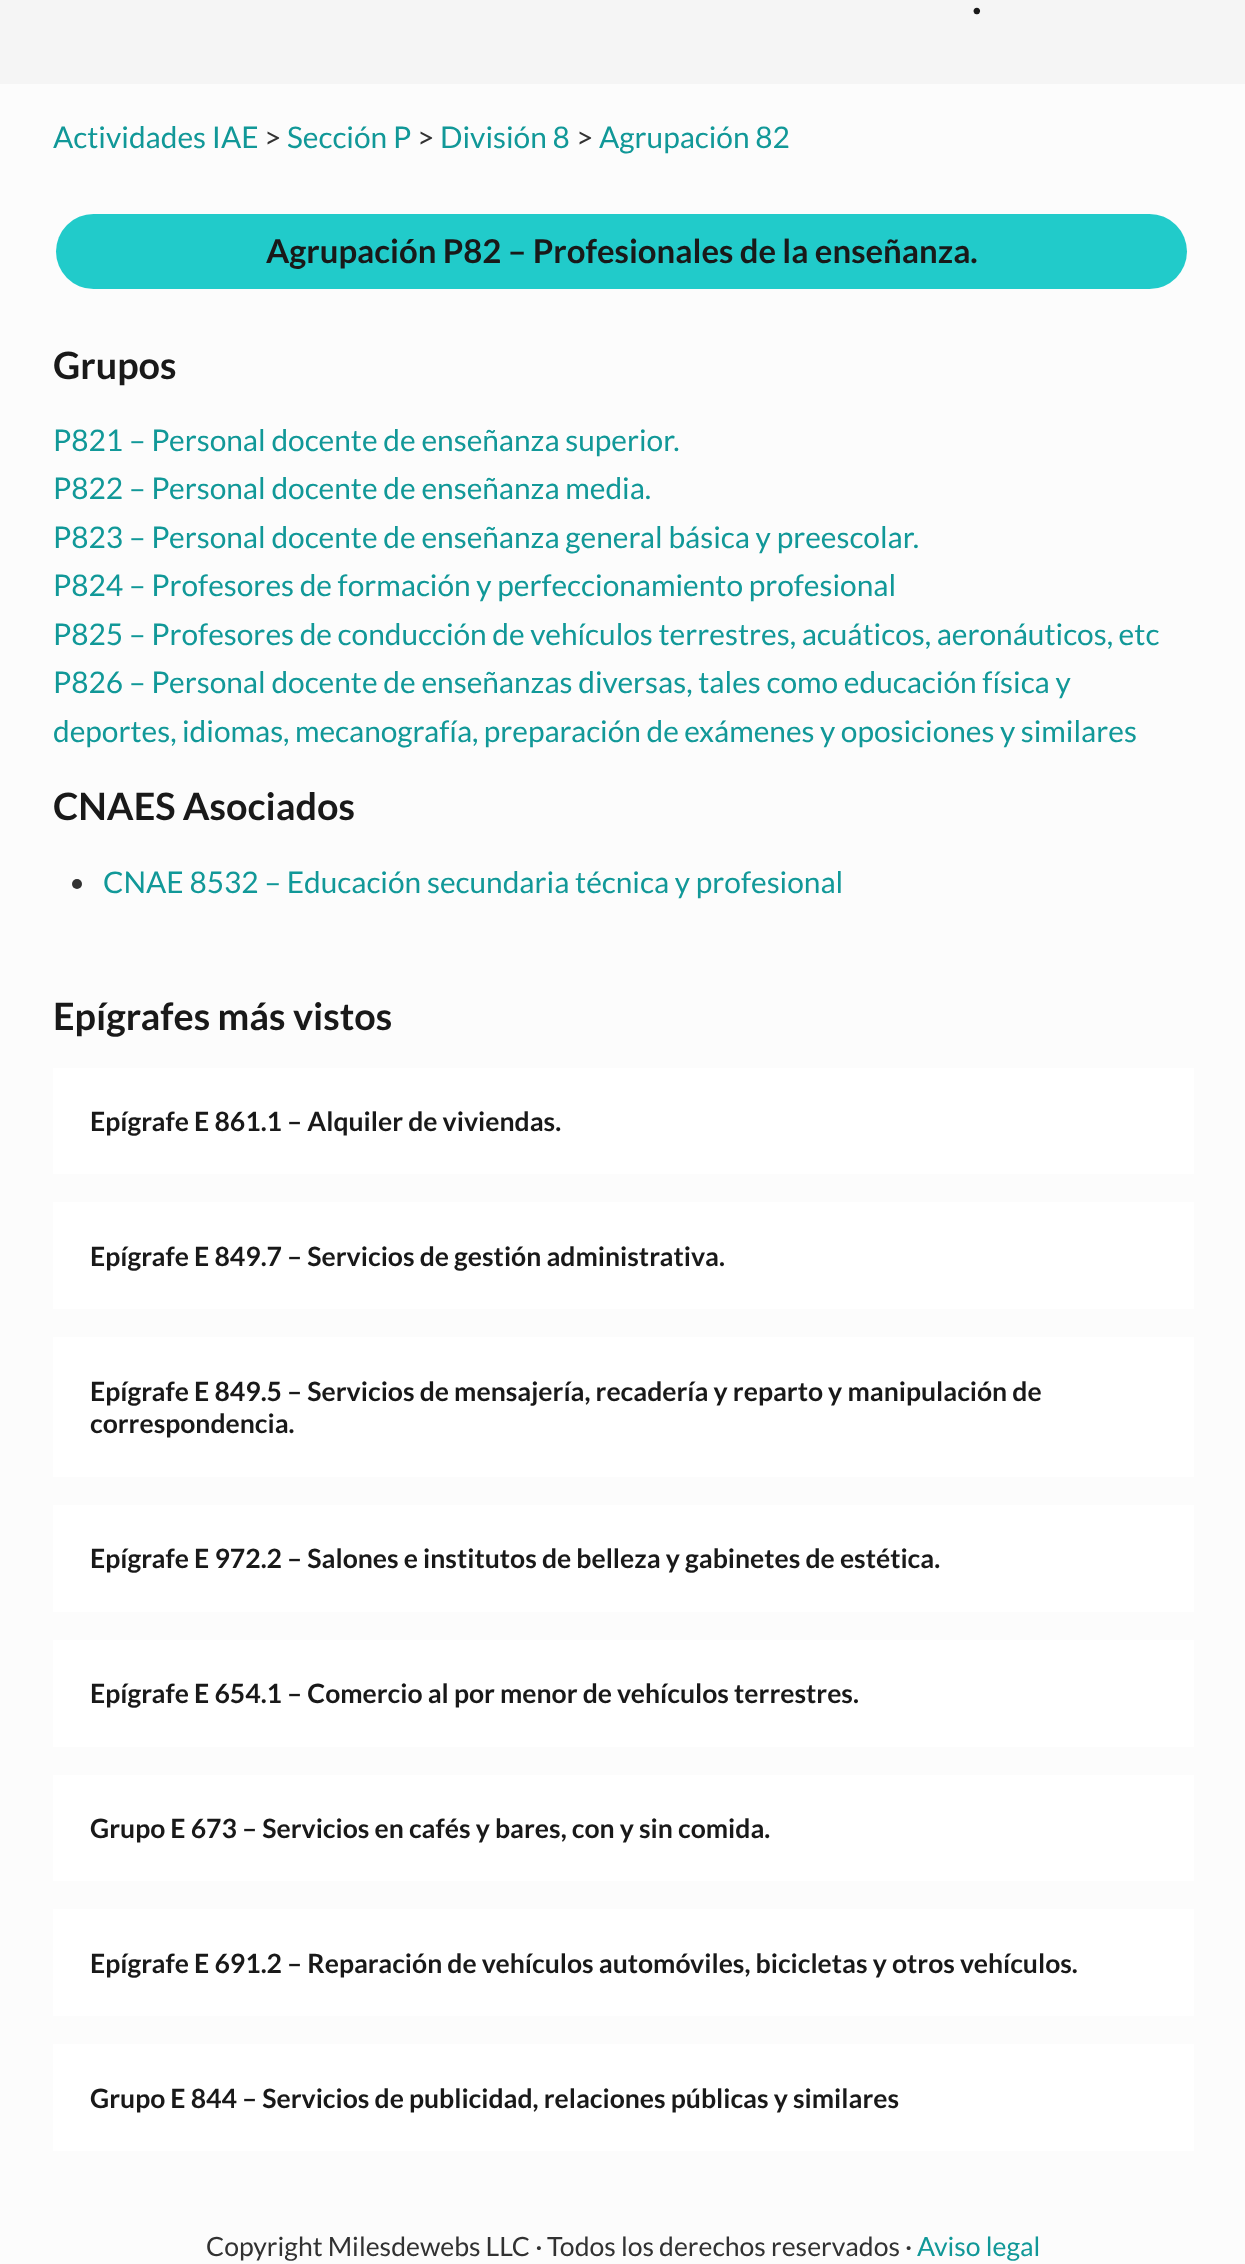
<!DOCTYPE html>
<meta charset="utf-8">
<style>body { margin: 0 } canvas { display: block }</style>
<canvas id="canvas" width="1245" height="2264"></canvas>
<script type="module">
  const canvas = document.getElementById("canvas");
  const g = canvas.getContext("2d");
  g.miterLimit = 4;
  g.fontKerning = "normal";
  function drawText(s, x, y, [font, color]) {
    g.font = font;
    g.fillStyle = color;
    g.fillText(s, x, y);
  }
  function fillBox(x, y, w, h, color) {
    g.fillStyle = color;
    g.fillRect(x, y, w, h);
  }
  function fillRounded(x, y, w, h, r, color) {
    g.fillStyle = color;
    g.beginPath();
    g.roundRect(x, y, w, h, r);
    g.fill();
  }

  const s1 = ["bold 43px Lato", "#191919"];
  const s2 = ["29.85px Lato", "#119898"];
  const s3 = ["29.85px Lato", "#323232"];
  const s4 = ["bold 32.9px Lato", "#191919"];
  const s5 = ["bold 37.75px Lato", "#191919"];
  const s6 = ["bold 26.55px Lato", "#191919"];
  const s7 = ["26.55px Lato", "#323232"];
  const s8 = ["26.55px Lato", "#119898"];

  fillBox(0, 0, 1245, 2264, "#FCFCFC");
  fillBox(0, 0, 1245, 84, "#F5F5F5");
  drawText(".", 972, 14, s1);
  drawText("Actividades IAE", 53, 148, s2);
  drawText(">", 264, 148, s3);
  drawText("Sección P", 287, 148, s2);
  drawText(">", 417, 148, s3);
  drawText("División 8", 440, 148, s2);
  drawText(">", 576, 148, s3);
  drawText("Agrupación 82", 599, 148, s2);
  fillRounded(56, 214, 1131, 75, 37.5, "#21CBCA");
  drawText("Agrupación P82 – Profesionales de la enseñanza.", 266, 263, s4);
  drawText("Grupos", 53, 379, s5);
  drawText("P821 – Personal docente de enseñanza superior.", 53, 451, s2);
  drawText("P822 – Personal docente de enseñanza media.", 53, 499, s2);
  drawText("P823 – Personal docente de enseñanza general básica y preescolar.", 53, 548, s2);
  drawText("P824", 53, 596, s2);
  g.wordSpacing = "-0.1px";
  drawText("– Profesores de formación y perfeccionamiento profesional", 129, 596, s2);
  g.wordSpacing = "0px";
  drawText("P825", 53, 645, s2);
  g.wordSpacing = "-0.1px";
  drawText("– Profesores de conducción de vehículos terrestres, acuáticos, aeronáuticos, etc", 129, 645, s2);
  g.wordSpacing = "0px";
  drawText("P826 – Personal docente de enseñanzas diversas, tales como educación física y", 53, 693, s2);
  g.wordSpacing = "-0.25px";
  drawText("deportes, idiomas, mecanografía, preparación de exámenes y oposiciones y similares", 53, 742, s2);
  g.wordSpacing = "0px";
  drawText("CNAES Asociados", 53, 820, s5);
  g.fillStyle = "#323232";
  g.beginPath();
  g.arc(77, 884, 5, 0, Math.PI * 2);
  g.fill();
  drawText("CNAE 8532 – Educación secundaria técnica y profesional", 103, 893, s2);
  drawText("Epígrafes más vistos", 53, 1030, s5);
  fillBox(53, 1068, 1141, 106, "#FFFFFF");
  drawText("Epígrafe E 861.1 – Alquiler de viviendas.", 90, 1131, s6);
  fillBox(53, 1202, 1141, 107, "#FFFFFF");
  drawText("Epígrafe E 849.7 – Servicios de gestión administrativa.", 90, 1266, s6);
  fillBox(53, 1337, 1141, 140, "#FFFFFF");
  drawText("Epígrafe E 849.5 – Servicios de mensajería, recadería y reparto y manipulación de", 90, 1401, s6);
  drawText("correspondencia.", 90, 1433, s6);
  fillBox(53, 1505, 1141, 107, "#FFFFFF");
  drawText("Epígrafe E 972.2 – Salones e institutos de belleza y gabinetes de estética.", 90, 1568, s6);
  fillBox(53, 1640, 1141, 107, "#FFFFFF");
  drawText("Epígrafe E 654.1 – Comercio al por menor de vehículos terrestres.", 90, 1703, s6);
  fillBox(53, 1775, 1141, 106, "#FFFFFF");
  drawText("Grupo E 673 – Servicios en cafés y bares, con y sin comida.", 90, 1838, s6);
  fillBox(53, 1909, 1141, 107, "#FFFFFF");
  drawText("Epígrafe E 691.2 – Reparación de vehículos automóviles, bicicletas y otros vehículos.", 90, 1973, s6);
  fillBox(53, 2044, 1141, 107, "#FFFFFF");
  drawText("Grupo E 844 – Servicios de publicidad, relaciones públicas y similares", 90, 2108, s6);
  drawText("Copyright Milesdewebs LLC ·", 206, 2256, s7);
  drawText("Todos los derechos reservados ·", 547, 2256, s7);
  drawText("Aviso legal", 917, 2256, s8);
</script>
